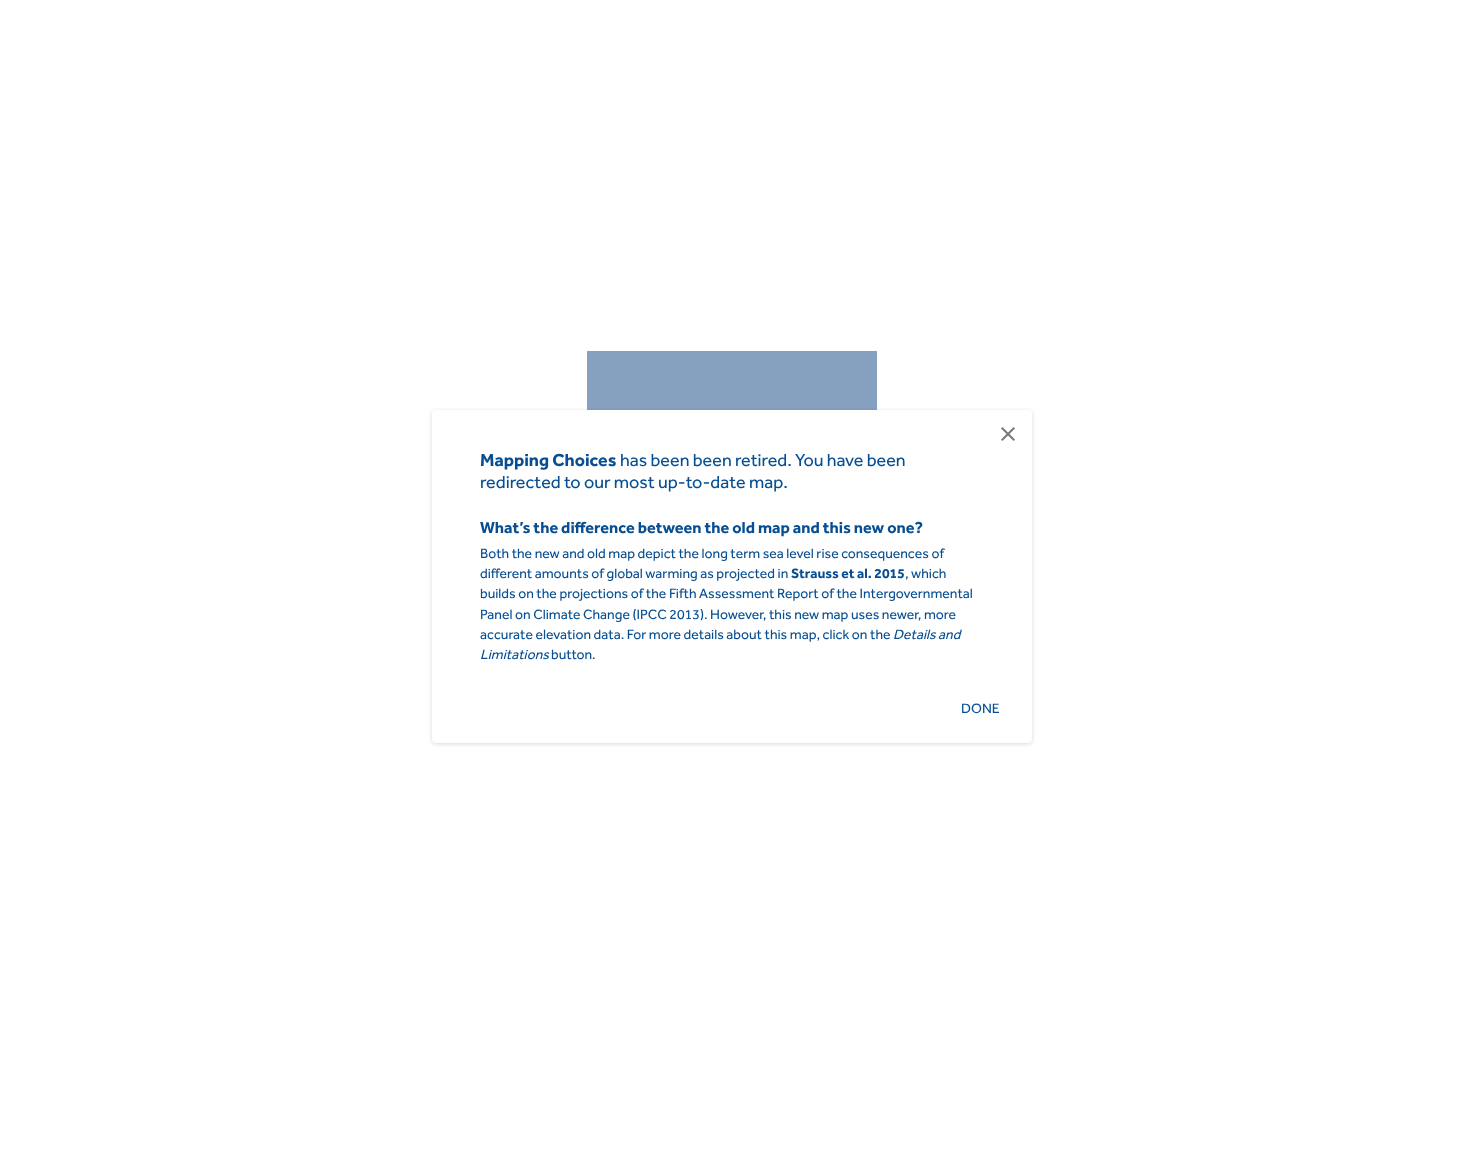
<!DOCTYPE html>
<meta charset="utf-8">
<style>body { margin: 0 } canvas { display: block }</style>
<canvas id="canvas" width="1464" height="1153"></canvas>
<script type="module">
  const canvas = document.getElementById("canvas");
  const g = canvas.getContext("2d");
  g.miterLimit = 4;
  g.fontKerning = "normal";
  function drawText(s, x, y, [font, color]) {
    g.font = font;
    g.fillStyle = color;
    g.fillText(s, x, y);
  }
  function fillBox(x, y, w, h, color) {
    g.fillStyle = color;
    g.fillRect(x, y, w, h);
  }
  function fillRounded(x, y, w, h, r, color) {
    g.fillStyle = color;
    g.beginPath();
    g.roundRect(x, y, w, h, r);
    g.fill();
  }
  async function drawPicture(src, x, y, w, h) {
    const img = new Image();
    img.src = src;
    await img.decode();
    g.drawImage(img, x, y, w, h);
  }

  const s1 = ["bold 18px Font", "#074F92"];
  const s2 = ["18px Font", "#074F92"];
  const s3 = ["bold 16.4px Font", "#074F92"];
  const s4 = ["14px Font", "#074F92"];
  const s5 = ["bold 14px Font", "#074F92"];
  const s6 = ["italic 14px Font", "#074F92"];

  fillBox(0, 0, 1464, 1153, "#FFFFFF");
  fillBox(587, 351, 290, 59, "#85A1BF");
  g.fillStyle = "rgba(0, 0, 0, 0.15)";
  g.filter = "blur(2px)";
  g.beginPath();
  g.roundRect(432, 411, 600, 333, 4);
  g.fill();
  g.filter = "none";
  fillRounded(432, 410, 600, 333, 4, "#FFFFFF");
  await drawPicture("pic1.png", 1001, 427, 14, 14);
  drawText("Mapping Choices", 480, 466, s1);
  drawText("has been been retired. You have been", 620, 466, s2);
  drawText("redirected to our most up-to-date map.", 480, 488, s2);
  drawText("What’s the difference between the old map and this new one?", 480, 533, s3);
  drawText("Both the new and old map depict the long term sea level rise consequences of", 480, 558, s4);
  drawText("different amounts of global warming as projected in", 480, 578, s4);
  drawText("Strauss et al. 2015", 791, 578, s5);
  drawText(", which", 905, 578, s4);
  drawText("builds on the projections of the Fifth Assessment Report of the Intergovernmental", 480, 598, s4);
  drawText("Panel on Climate Change (IPCC 2013). However, this new map uses newer, more", 480, 619, s4);
  drawText("accurate elevation data. For more details about this map, click on the", 480, 639, s4);
  drawText("Details and", 893, 639, s6);
  drawText("Limitations", 480, 659, s6);
  drawText("button.", 551, 659, s4);
  drawText("DONE", 961, 713, s4);
</script>
